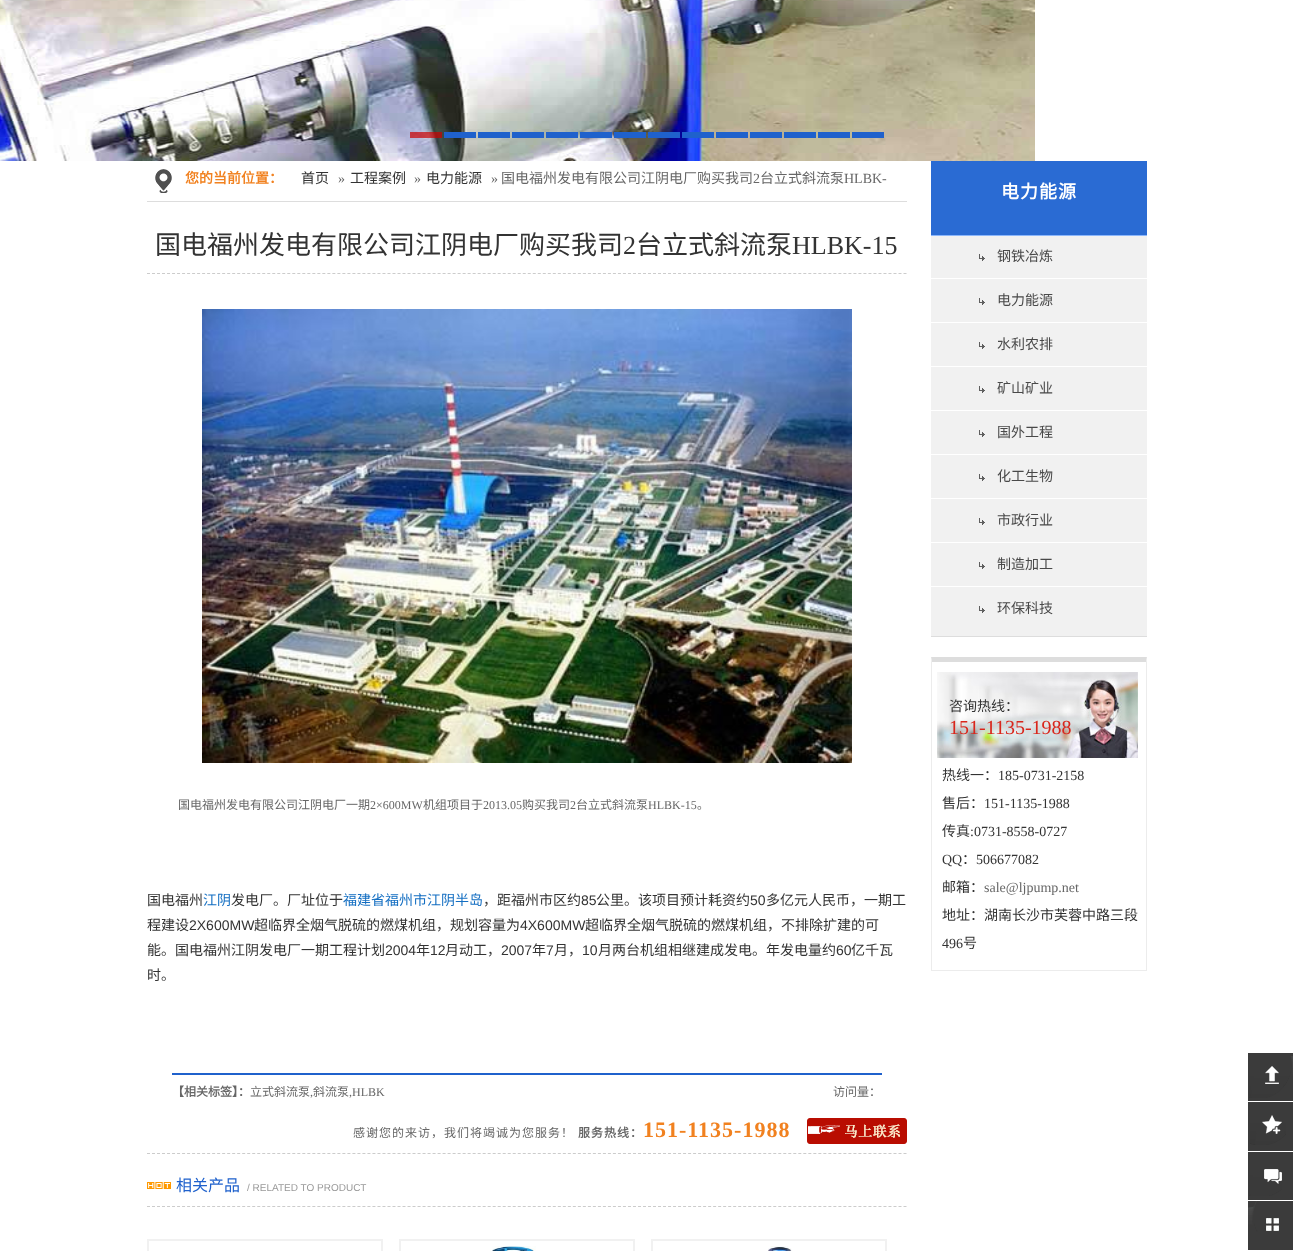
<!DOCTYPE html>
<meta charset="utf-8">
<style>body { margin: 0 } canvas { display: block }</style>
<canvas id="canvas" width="1293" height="1251"></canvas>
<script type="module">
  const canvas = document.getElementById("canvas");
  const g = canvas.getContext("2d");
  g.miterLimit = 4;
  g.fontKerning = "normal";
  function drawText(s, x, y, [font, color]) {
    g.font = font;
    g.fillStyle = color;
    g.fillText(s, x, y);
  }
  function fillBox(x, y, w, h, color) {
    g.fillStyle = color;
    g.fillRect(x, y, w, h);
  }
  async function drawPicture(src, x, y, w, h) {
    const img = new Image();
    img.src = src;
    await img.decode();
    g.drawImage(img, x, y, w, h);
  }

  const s1 = ["bold 14px Noto Sans CJK SC", "#F1811F"];
  const s2 = ["14px Noto Sans CJK SC", "#333333"];
  const s3 = ["14px Liberation Serif", "#666666"];
  const s4 = ["14px Noto Sans CJK SC", "#666666"];
  const s5 = ["26px Noto Sans CJK SC", "#333333"];
  const s6 = ["26px Liberation Serif", "#333333"];
  const s7 = ["12px Noto Sans CJK SC", "#666666"];
  const s8 = ["12px Liberation Serif", "#666666"];
  const s9 = ["14px Noto Sans CJK SC", "#136EC2"];
  const s10 = ["14px Liberation Sans", "#333333"];
  const s11 = ["bold 12px Noto Sans CJK SC", "#666666"];
  const s12 = ["bold 22px Liberation Serif", "#F1811F"];
  const s13 = ["16px Noto Sans CJK SC", "#1F61CC"];
  const s14 = ["10px Liberation Sans", "#999999"];
  const s15 = ["bold 18px Noto Sans CJK SC", "#FFFFFF"];
  const s16 = ["14px Noto Sans CJK SC", "#494949"];
  const s17 = ["20px Liberation Serif", "#D9261C"];
  const s18 = ["14px Liberation Serif", "#333333"];

  fillBox(0, 0, 1293, 1251, "#FFFFFF");
  await drawPicture("pic1.png", 0, 0, 1035, 161);
  fillBox(410, 132, 32, 6, "rgba(204, 0, 0, 0.7)");
  fillBox(444, 132, 32, 6, "#1F61CC");
  fillBox(478, 132, 32, 6, "#1F61CC");
  fillBox(512, 132, 32, 6, "#1F61CC");
  fillBox(546, 132, 32, 6, "#1F61CC");
  fillBox(580, 132, 32, 6, "#1F61CC");
  fillBox(614, 132, 32, 6, "#1F61CC");
  fillBox(648, 132, 32, 6, "#1F61CC");
  fillBox(682, 132, 32, 6, "#1F61CC");
  fillBox(716, 132, 32, 6, "#1F61CC");
  fillBox(750, 132, 32, 6, "#1F61CC");
  fillBox(784, 132, 32, 6, "#1F61CC");
  fillBox(818, 132, 32, 6, "#1F61CC");
  fillBox(852, 132, 32, 6, "#1F61CC");
  await drawPicture("pic2.png", 155, 169, 17, 24);
  fillBox(147, 201, 760, 1, "#DDDDDD");
  drawText("您的当前位置：", 185, 183, s1);
  drawText("首页", 301, 183, s2);
  drawText("»", 338, 183, s3);
  drawText("工程案例", 350, 183, s2);
  drawText("»", 414, 183, s3);
  drawText("电力能源", 426, 183, s2);
  drawText("»", 491, 183, s3);
  drawText("国电福州发电有限公司江阴电厂购买我司", 501, 183, s4);
  drawText("2", 753, 183, s3);
  drawText("台立式斜流泵", 760, 183, s4);
  drawText("HLBK-", 844, 183, s3);
  g.beginPath();
  g.moveTo(147, 273.5);
  g.lineTo(907, 273.5);
  g.strokeStyle = "#CCCCCC";
  g.setLineDash([3, 2.01]);
  g.stroke();
  drawText("国电福州发电有限公司江阴电厂购买我司", 155, 254, s5);
  drawText("2", 623, 254, s6);
  drawText("台立式斜流泵", 636, 254, s5);
  drawText("HLBK-15", 792, 254, s6);
  await drawPicture("pic3.png", 202, 309, 650, 454);
  drawText("国电福州发电有限公司江阴电厂一期", 178, 809, s7);
  drawText("2×600MW", 370, 809, s8);
  drawText("机组项目于", 423, 809, s7);
  drawText("2013.05", 483, 809, s8);
  drawText("购买我司", 522, 809, s7);
  drawText("2", 570, 809, s8);
  drawText("台立式斜流泵", 576, 809, s7);
  drawText("HLBK-15", 648, 809, s8);
  drawText("。", 697, 809, s7);
  drawText("国电福州", 147, 905, s2);
  drawText("江阴", 203, 905, s9);
  drawText("发电厂。厂址位于", 231, 905, s2);
  drawText("福建省福州市江阴半岛", 343, 905, s9);
  drawText("，距福州市区约", 483, 905, s2);
  drawText("85", 581, 905, s10);
  drawText("公里。该项目预计耗资约", 596, 905, s2);
  drawText("50", 750, 905, s10);
  drawText("多亿元人民币，一期工", 766, 905, s2);
  drawText("程建设", 147, 930, s2);
  drawText("2X600MW", 189, 930, s10);
  drawText("超临界全烟气脱硫的燃煤机组，规划容量为", 254, 930, s2);
  drawText("4X600MW", 520, 930, s10);
  drawText("超临界全烟气脱硫的燃煤机组，不排除扩建的可", 585, 930, s2);
  drawText("能。国电福州江阴发电厂一期工程计划", 147, 955, s2);
  drawText("2004", 385, 955, s10);
  drawText("年", 416, 955, s2);
  drawText("12", 430, 955, s10);
  drawText("月动工，", 445, 955, s2);
  drawText("2007", 501, 955, s10);
  drawText("年", 532, 955, s2);
  drawText("7", 546, 955, s10);
  drawText("月，", 554, 955, s2);
  drawText("10", 582, 955, s10);
  drawText("月两台机组相继建成发电。年发电量约", 598, 955, s2);
  drawText("60", 836, 955, s10);
  drawText("亿千瓦", 851, 955, s2);
  drawText("时。", 147, 980, s2);
  fillBox(172, 1073, 710, 2, "#1F61CC");
  drawText("【相关标签】：", 172, 1096, s11);
  drawText("立式斜流泵", 250, 1096, s7);
  drawText(",", 310, 1096, s8);
  drawText("斜流泵", 313, 1096, s7);
  drawText(",HLBK", 349, 1096, s8);
  drawText("访问量：", 833, 1096, s7);
  g.beginPath();
  g.moveTo(147, 1153.5);
  g.lineTo(907, 1153.5);
  g.stroke();
  g.letterSpacing = "1px";
  drawText("感谢您的来访，我们将竭诚为您服务！", 353, 1137, s7);
  drawText("服务热线：", 578, 1137, s11);
  drawText("151-1135-1988", 643, 1137, s12);
  await drawPicture("pic4.png", 807, 1118, 100, 26);
  await drawPicture("pic5.png", 147, 1182, 24, 7);
  g.beginPath();
  g.moveTo(147, 1206.5);
  g.lineTo(907, 1206.5);
  g.stroke();
  g.letterSpacing = "0px";
  drawText("相关产品", 176, 1191, s13);
  drawText("/ RELATED TO PRODUCT", 247, 1191, s14);
  g.strokeStyle = "#F1F1F1";
  g.lineWidth = 2;
  g.setLineDash([]);
  g.strokeRect(148, 1240, 234, 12);
  g.strokeRect(400, 1240, 234, 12);
  await drawPicture("pic6.png", 492, 1246, 44, 5);
  g.strokeRect(652, 1240, 234, 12);
  await drawPicture("pic7.png", 768, 1246, 24, 5);
  fillBox(931, 161, 216, 74, "#2A6BD3");
  g.letterSpacing = "1px";
  drawText("电力能源", 1001, 198, s15);
  fillBox(931, 236, 216, 400, "#F1F1F1");
  fillBox(931, 235, 216, 1, "#8BB6FB");
  fillBox(931, 636, 216, 1, "#DDDDDD");
  fillBox(931, 278, 216, 1, "#FFFFFF");
  await drawPicture("pic8.png", 979, 254, 6, 7);
  g.letterSpacing = "0px";
  drawText("钢铁冶炼", 997, 261, s16);
  fillBox(931, 322, 216, 1, "#FFFFFF");
  await drawPicture("pic8.png", 979, 298, 6, 7);
  drawText("电力能源", 997, 305, s16);
  fillBox(931, 366, 216, 1, "#FFFFFF");
  await drawPicture("pic8.png", 979, 342, 6, 7);
  drawText("水利农排", 997, 349, s16);
  fillBox(931, 410, 216, 1, "#FFFFFF");
  await drawPicture("pic8.png", 979, 386, 6, 7);
  drawText("矿山矿业", 997, 393, s16);
  fillBox(931, 454, 216, 1, "#FFFFFF");
  await drawPicture("pic8.png", 979, 430, 6, 7);
  drawText("国外工程", 997, 437, s16);
  fillBox(931, 498, 216, 1, "#FFFFFF");
  await drawPicture("pic8.png", 979, 474, 6, 7);
  drawText("化工生物", 997, 481, s16);
  fillBox(931, 542, 216, 1, "#FFFFFF");
  await drawPicture("pic8.png", 979, 518, 6, 7);
  drawText("市政行业", 997, 525, s16);
  fillBox(931, 586, 216, 1, "#FFFFFF");
  await drawPicture("pic8.png", 979, 562, 6, 7);
  drawText("制造加工", 997, 569, s16);
  await drawPicture("pic8.png", 979, 606, 6, 7);
  drawText("环保科技", 997, 613, s16);
  g.fillStyle = "#DDDDDD";
  g.beginPath();
  g.moveTo(931, 657);
  g.lineTo(1147, 657);
  g.lineTo(1146, 662);
  g.lineTo(932, 662);
  g.closePath();
  g.fill();
  g.fillStyle = "#ECECEC";
  g.beginPath();
  g.moveTo(1147, 657);
  g.lineTo(1147, 971);
  g.lineTo(1146, 970);
  g.lineTo(1146, 662);
  g.closePath();
  g.fill();
  fillBox(931, 970, 216, 1, "#ECECEC");
  g.beginPath();
  g.moveTo(931, 971);
  g.lineTo(931, 657);
  g.lineTo(932, 662);
  g.lineTo(932, 970);
  g.closePath();
  g.fill();
  await drawPicture("pic9.png", 937, 672, 201, 86);
  drawText("咨询热线：", 949, 711, s2);
  drawText("151-1135-1988", 949, 734, s17);
  drawText("热线一：", 942, 780, s2);
  drawText("185-0731-2158", 998, 780, s18);
  drawText("售后：", 942, 808, s2);
  drawText("151-1135-1988", 984, 808, s18);
  drawText("传真", 942, 836, s2);
  drawText(":0731-8558-0727", 970, 836, s18);
  drawText("QQ", 942, 864, s18);
  drawText("：", 962, 864, s2);
  drawText("506677082", 976, 864, s18);
  drawText("邮箱：", 942, 892, s2);
  drawText("sale@ljpump.net", 984, 892, s3);
  drawText("地址：湖南长沙市芙蓉中路三段", 942, 920, s2);
  drawText("496", 942, 948, s18);
  drawText("号", 963, 948, s2);
  fillBox(1248, 1053, 45, 48, "#3B3B3B");
  await drawPicture("pic10.png", 1249, 1056, 44, 42);
  fillBox(1248, 1102, 45, 49, "#3B3B3B");
  await drawPicture("pic11.png", 1250, 1115, 36, 30);
  fillBox(1248, 1152, 45, 48, "#3B3B3B");
  await drawPicture("pic12.png", 1249, 1169, 33, 27);
  fillBox(1248, 1201, 45, 49, "#3B3B3B");
  await drawPicture("pic13.png", 1248, 1201, 31, 31);
</script>
